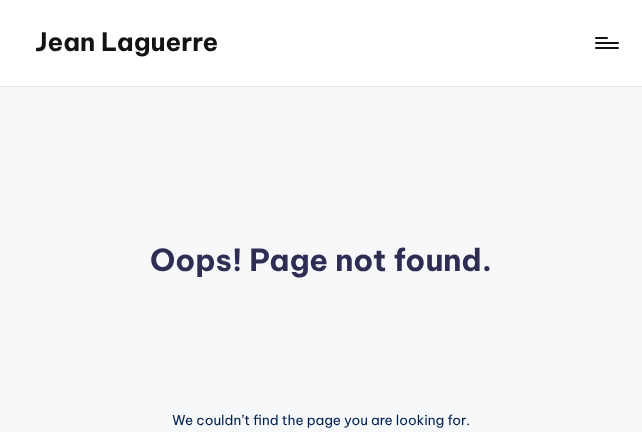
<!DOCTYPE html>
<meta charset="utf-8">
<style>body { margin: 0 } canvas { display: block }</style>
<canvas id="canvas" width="642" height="432"></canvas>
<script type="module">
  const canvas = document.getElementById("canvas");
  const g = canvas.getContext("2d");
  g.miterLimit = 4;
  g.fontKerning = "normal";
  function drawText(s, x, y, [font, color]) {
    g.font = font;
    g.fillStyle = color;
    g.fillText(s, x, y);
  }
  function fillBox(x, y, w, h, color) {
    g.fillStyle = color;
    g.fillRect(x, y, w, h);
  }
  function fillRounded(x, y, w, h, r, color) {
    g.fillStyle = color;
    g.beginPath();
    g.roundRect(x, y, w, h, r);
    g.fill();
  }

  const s1 = ["bold 25.5px Be Vietnam Pro", "#131315"];
  const s2 = ["bold 30.5px Be Vietnam Pro", "#302D55"];
  const s3 = ["13.6px Be Vietnam Pro", "#002050"];

  fillBox(0, 0, 642, 432, "#F7F8F9");
  fillBox(0, 0, 642, 86, "#FFFFFF");
  fillBox(0, 86, 642, 1, "#E3E3E3");
  drawText("Jean Laguerre", 35, 51, s1);
  fillRounded(595, 42, 24, 2, 1, "#131315");
  fillRounded(595, 37, 13, 2, 1, "#131315");
  fillRounded(595, 47, 24, 2, 1, "#131315");
  drawText("Oops! Page not found.", 150, 271, s2);
  drawText("We couldn’t find the page you are looking for.", 172, 425, s3);
</script>
